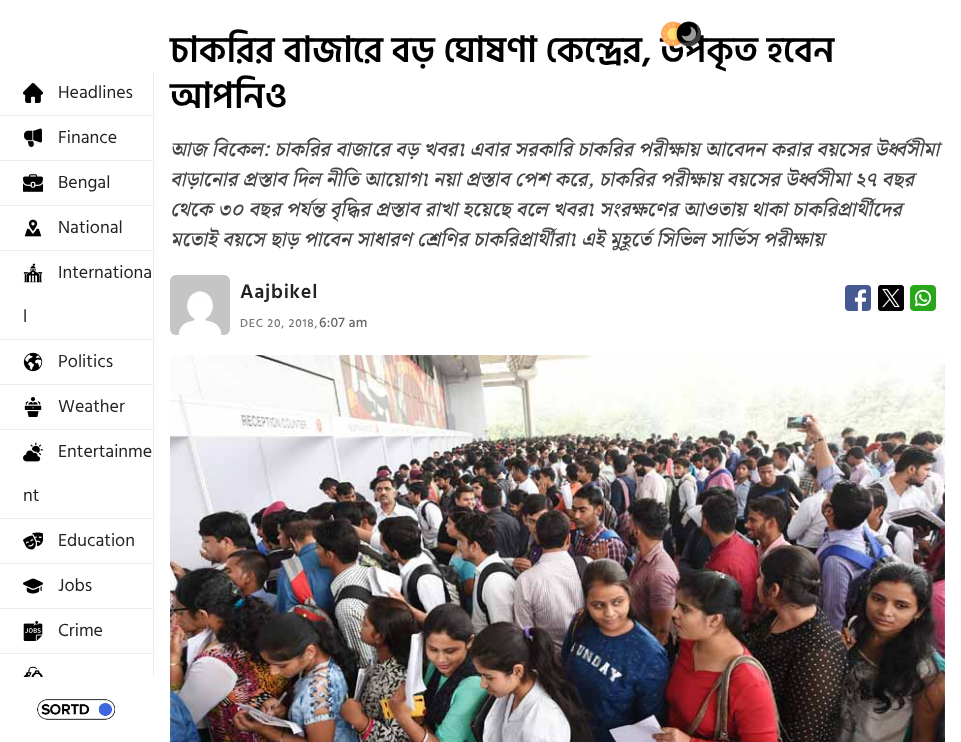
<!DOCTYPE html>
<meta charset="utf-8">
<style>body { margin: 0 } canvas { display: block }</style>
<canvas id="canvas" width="961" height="742"></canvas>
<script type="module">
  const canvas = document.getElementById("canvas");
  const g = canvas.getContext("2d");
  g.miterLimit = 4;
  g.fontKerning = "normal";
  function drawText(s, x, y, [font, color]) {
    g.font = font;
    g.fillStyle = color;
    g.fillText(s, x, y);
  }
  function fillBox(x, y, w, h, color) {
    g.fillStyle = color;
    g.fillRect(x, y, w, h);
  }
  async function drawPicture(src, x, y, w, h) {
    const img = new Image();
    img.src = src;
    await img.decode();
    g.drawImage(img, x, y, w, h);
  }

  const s1 = ["600 36px Hind Siliguri", "#000000"];
  const s2 = ["18px Hind Siliguri", "#222222"];
  const s3 = ["italic 600 20px Noto Serif Bengali", "#444444"];
  const s4 = ["600 20px Hind Siliguri", "#222222"];
  const s5 = ["500 12px Hind Siliguri", "#777777"];
  const s6 = ["500 14px Hind Siliguri", "#666666"];

  fillBox(0, 0, 961, 742, "#FFFFFF");
  drawText("চাকরির বাজারে বড় ঘোষণা কেন্দ্রের, উপকৃত হবেন", 170, 62, s1);
  await drawPicture("pic1.png", 661, 21, 40, 26);
  fillBox(153, 71, 1, 606, "#EEEEEE");
  fillBox(0, 115, 153, 1, "#EDEDED");
  await drawPicture("pic2.png", 23, 83, 20, 20);
  drawText("Headlines", 58, 98, s2);
  fillBox(0, 160, 153, 1, "#EDEDED");
  await drawPicture("pic3.png", 24, 128, 18, 19);
  drawText("Finance", 58, 143, s2);
  fillBox(0, 205, 153, 1, "#EDEDED");
  await drawPicture("pic4.png", 23, 174, 20, 18);
  drawText("Bengal", 58, 188, s2);
  fillBox(0, 250, 153, 1, "#EDEDED");
  await drawPicture("pic5.png", 24, 219, 18, 18);
  drawText("National", 58, 233, s2);
  fillBox(0, 339, 153, 1, "#EDEDED");
  await drawPicture("pic6.png", 23, 263, 20, 20);
  drawText("Internationa", 58, 278, s2);
  drawText("l", 23, 322, s2);
  fillBox(0, 384, 153, 1, "#EDEDED");
  await drawPicture("pic7.png", 23, 352, 20, 20);
  drawText("Politics", 58, 367, s2);
  fillBox(0, 429, 153, 1, "#EDEDED");
  await drawPicture("pic8.png", 24, 397, 18, 20);
  drawText("Weather", 58, 412, s2);
  fillBox(0, 518, 153, 1, "#EDEDED");
  await drawPicture("pic9.png", 23, 442, 20, 20);
  drawText("Entertainme", 58, 457, s2);
  drawText("nt", 23, 501, s2);
  fillBox(0, 563, 153, 1, "#EDEDED");
  await drawPicture("pic10.png", 23, 532, 20, 18);
  drawText("Education", 58, 546, s2);
  fillBox(0, 608, 153, 1, "#EDEDED");
  await drawPicture("pic11.png", 23, 578, 20, 16);
  drawText("Jobs", 58, 591, s2);
  fillBox(0, 653, 153, 1, "#EDEDED");
  await drawPicture("pic12.png", 23, 621, 20, 20);
  drawText("Crime", 58, 636, s2);
  await drawPicture("pic13.png", 23, 666, 20, 11);
  await drawPicture("pic14.png", 37, 699, 78, 21);
  drawText("আপনিও", 170, 108, s1);
  drawText("আজ বিকেল: চাকরির বাজারে বড় খবর৷ এবার সরকারি চাকরির পরীক্ষায় আবেদন করার বয়সের উর্ধ্বসীমা", 170, 156, s3);
  drawText("বাড়ানোর প্রস্তাব দিল নীতি আয়োগ৷ নয়া প্রস্তাব পেশ করে, চাকরির পরীক্ষায় বয়সের উর্ধ্বসীমা ২৭ বছর", 170, 186, s3);
  drawText("থেকে ৩০ বছর পর্যন্ত বৃদ্ধির প্রস্তাব রাখা হয়েছে বলে খবর৷ সংরক্ষণের আওতায় থাকা চাকরিপ্রার্থীদের", 170, 216, s3);
  drawText("মতোই বয়সে ছাড় পাবেন সাধারণ শ্রেণির চাকরিপ্রার্থীরা৷ এই মুহূর্তে সিভিল সার্ভিস পরীক্ষায়", 170, 246, s3);
  await drawPicture("pic15.png", 170, 275, 60, 60);
  g.letterSpacing = "0.75px";
  drawText("Aajbikel", 240, 298, s4);
  drawText("DEC 20, 2018,", 240, 327, s5);
  g.letterSpacing = "0.25px";
  drawText("6:07 am", 319, 327, s6);
  await drawPicture("pic16.png", 845, 285, 26, 26);
  await drawPicture("pic17.png", 878, 285, 26, 26);
  await drawPicture("pic18.png", 910, 285, 26, 26);
  await drawPicture("pic19.png", 170, 355, 775, 387);
</script>
